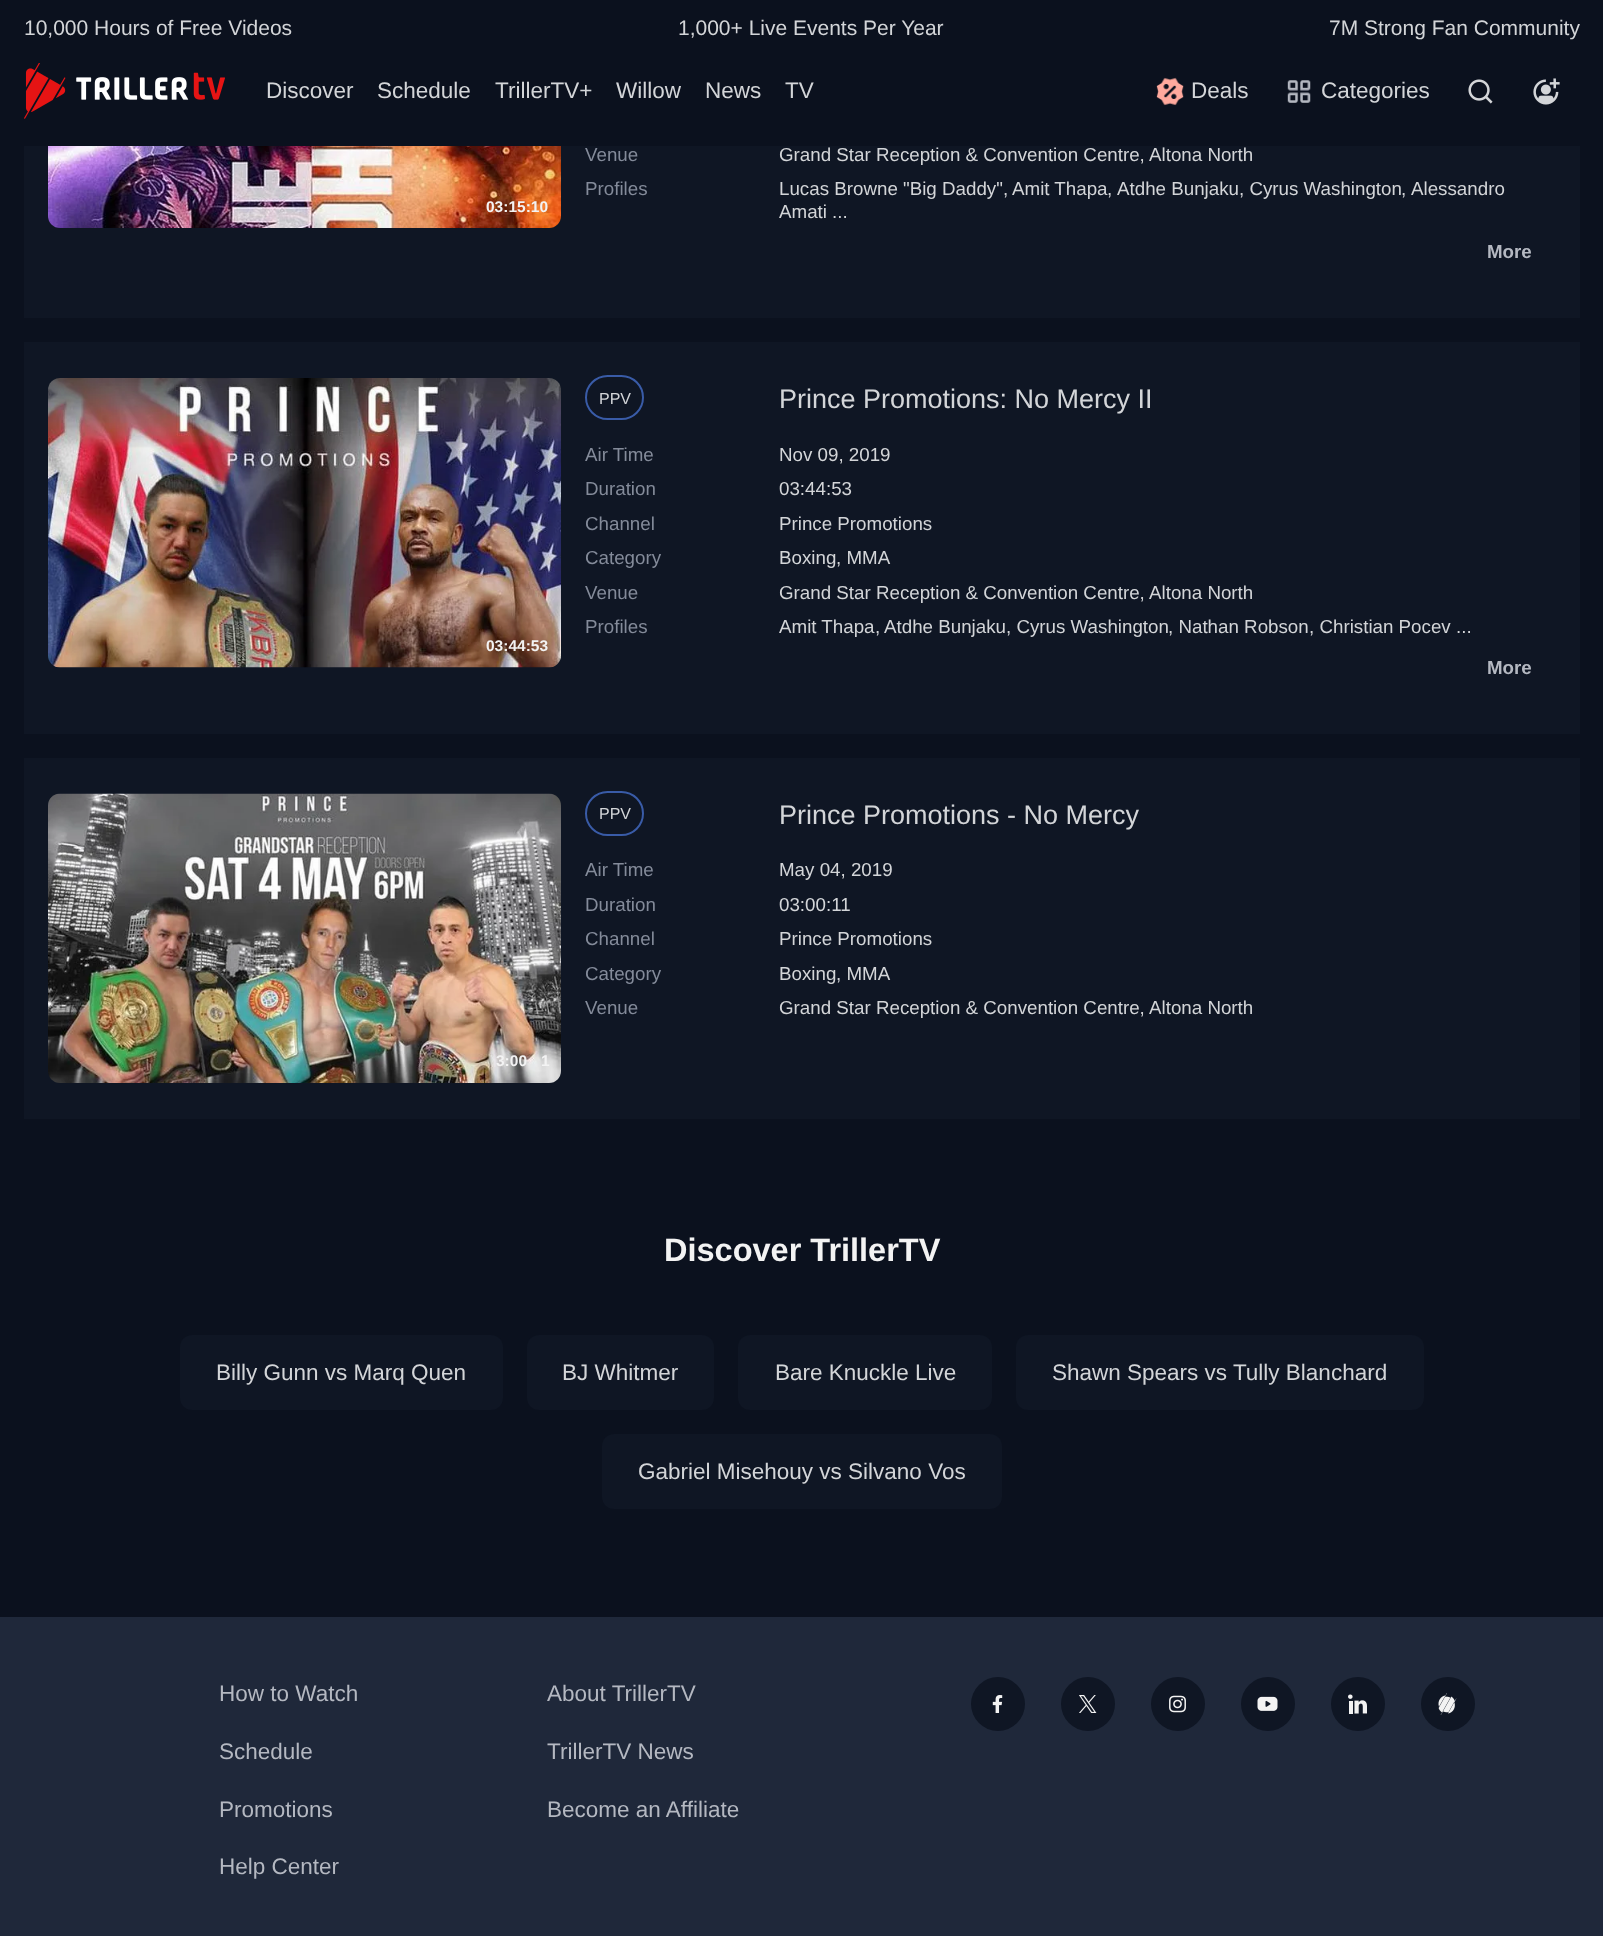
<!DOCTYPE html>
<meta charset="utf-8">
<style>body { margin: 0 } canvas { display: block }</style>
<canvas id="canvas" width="1603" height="1936"></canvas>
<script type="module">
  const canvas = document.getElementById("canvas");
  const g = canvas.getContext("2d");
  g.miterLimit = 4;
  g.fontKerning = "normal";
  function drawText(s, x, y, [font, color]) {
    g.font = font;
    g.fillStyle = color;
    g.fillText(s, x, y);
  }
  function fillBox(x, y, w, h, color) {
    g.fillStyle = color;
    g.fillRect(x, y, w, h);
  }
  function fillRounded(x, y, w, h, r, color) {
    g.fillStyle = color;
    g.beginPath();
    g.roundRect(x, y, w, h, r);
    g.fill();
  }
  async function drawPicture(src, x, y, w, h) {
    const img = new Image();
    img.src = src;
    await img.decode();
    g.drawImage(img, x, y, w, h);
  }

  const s1 = ["21px Liberation Sans", "#D3D5D8"];
  const s2 = ["22.5px Liberation Sans", "#D3D5D8"];
  const s3 = ["bold 15.5px Liberation Sans", "#F3F3F3"];
  const s4 = ["18.75px Liberation Sans", "#848B9A"];
  const s5 = ["18.75px Liberation Sans", "#D3D5D8"];
  const s6 = ["bold 18.75px Liberation Sans", "#B4B8C1"];
  const s7 = ["16px Liberation Sans", "#D3D5D8"];
  const s8 = ["27px Liberation Sans", "#D3D5D8"];
  const s9 = ["bold 32.5px Liberation Sans", "#F3F3F3"];
  const s10 = ["22.5px Liberation Sans", "#B4B8C1"];

  fillBox(0, 0, 1603, 1936, "#0B111E");
  drawText("10,000 Hours of Free Videos", 24, 35, s1);
  drawText("1,000+ Live Events Per Year", 678, 35, s1);
  drawText("7M Strong Fan Community", 1329, 35, s1);
  await drawPicture("pic1.png", 24, 63, 201, 56);
  drawText("Discover", 266, 98, s2);
  drawText("Schedule", 377, 98, s2);
  drawText("TrillerTV+", 495, 98, s2);
  drawText("Willow", 616, 98, s2);
  drawText("News", 705, 98, s2);
  drawText("TV", 785, 98, s2);
  await drawPicture("pic2.png", 1156, 77, 28, 29);
  drawText("Deals", 1191, 98, s2);
  await drawPicture("pic3.png", 1287, 80, 24, 23);
  drawText("Categories", 1321, 98, s2);
  await drawPicture("pic4.png", 1468, 79, 25, 25);
  await drawPicture("pic5.png", 1533, 78, 27, 27);
  fillBox(24, 146, 1556, 172, "#0F1624");
  await drawPicture("pic6.png", 48, 146, 513, 82);
  drawText("03:15:10", 486, 212, s3);
  drawText("Venue", 585, 161, s4);
  drawText("Grand Star Reception & Convention Centre, Altona North", 779, 161, s5);
  drawText("Profiles", 585, 195, s4);
  drawText("Lucas Browne \"Big Daddy\"", 779, 195, s5);
  drawText(",", 1003, 195, s5);
  drawText("Amit Thapa", 1012, 195, s5);
  drawText(",", 1107, 195, s5);
  drawText("Atdhe Bunjaku", 1117, 195, s5);
  drawText(", Cyrus Washington", 1239, 195, s5);
  drawText(",", 1401, 195, s5);
  drawText("Alessandro", 1411, 195, s5);
  drawText("Amati", 779, 218, s5);
  drawText("...", 832, 218, s5);
  drawText("More", 1487, 258, s6);
  fillBox(24, 342, 1556, 392, "#0F1624");
  await drawPicture("pic7.png", 48, 378, 513, 290);
  drawText("03:44:53", 486, 651, s3);
  g.beginPath();
  g.roundRect(586, 376, 57, 43, 21.5);
  g.strokeStyle = "#395BA7";
  g.lineWidth = 2;
  g.stroke();
  drawText("PPV", 599, 404, s7);
  drawText("Prince Promotions: No Mercy II", 779, 408, s8);
  drawText("Air Time", 585, 461, s4);
  drawText("Nov 09, 2019", 779, 461, s5);
  drawText("Duration", 585, 495, s4);
  drawText("03:44:53", 779, 495, s5);
  drawText("Channel", 585, 530, s4);
  drawText("Prince Promotions", 779, 530, s5);
  drawText("Category", 585, 564, s4);
  drawText("Boxing", 779, 564, s5);
  drawText(", MMA", 836, 564, s5);
  drawText("Venue", 585, 599, s4);
  drawText("Grand Star Reception & Convention Centre, Altona North", 779, 599, s5);
  drawText("Profiles", 585, 633, s4);
  drawText("Amit Thapa", 779, 633, s5);
  drawText(",", 875, 633, s5);
  drawText("Atdhe Bunjaku", 884, 633, s5);
  drawText(", Cyrus Washington", 1006, 633, s5);
  drawText(", Nathan Robson", 1168, 633, s5);
  drawText(", Christian Pocev", 1309, 633, s5);
  drawText("...", 1456, 633, s5);
  drawText("More", 1487, 674, s6);
  fillBox(24, 758, 1556, 361, "#0F1624");
  g.beginPath();
  g.roundRect(586, 792, 57, 43, 21.5);
  g.stroke();
  drawText("PPV", 599, 819, s7);
  drawText("Prince Promotions - No Mercy", 779, 824, s8);
  drawText("Air Time", 585, 876, s4);
  drawText("May 04, 2019", 779, 876, s5);
  drawText("Duration", 585, 911, s4);
  drawText("03:00:11", 779, 911, s5);
  drawText("Channel", 585, 945, s4);
  drawText("Prince Promotions", 779, 945, s5);
  drawText("Category", 585, 980, s4);
  drawText("Boxing", 779, 980, s5);
  drawText(", MMA", 836, 980, s5);
  drawText("Venue", 585, 1014, s4);
  drawText("Grand Star Reception & Convention Centre, Altona North", 779, 1014, s5);
  await drawPicture("pic8.png", 48, 793, 513, 290);
  drawText("3:00", 496, 1066, s3);
  drawText("1", 541, 1066, s3);
  drawText("Discover TrillerTV", 664, 1261, s9);
  fillRounded(180, 1335, 323, 75, 12, "#0F1624");
  drawText("Billy Gunn vs Marq Quen", 216, 1380, s2);
  fillRounded(527, 1335, 187, 75, 12, "#0F1624");
  drawText("BJ Whitmer", 562, 1380, s2);
  fillRounded(738, 1335, 254, 75, 12, "#0F1624");
  drawText("Bare Knuckle Live", 775, 1380, s2);
  fillRounded(1016, 1335, 408, 75, 12, "#0F1624");
  drawText("Shawn Spears vs Tully Blanchard", 1052, 1380, s2);
  fillRounded(602, 1434, 400, 75, 12, "#0F1624");
  drawText("Gabriel Misehouy vs Silvano Vos", 638, 1479, s2);
  fillBox(0, 1617, 1603, 319, "#1F283A");
  drawText("How to Watch", 219, 1701, s10);
  drawText("Schedule", 219, 1759, s10);
  drawText("Promotions", 219, 1817, s10);
  drawText("Help Center", 219, 1874, s10);
  drawText("About TrillerTV", 547, 1701, s10);
  drawText("TrillerTV News", 547, 1759, s10);
  drawText("Become an Affiliate", 547, 1817, s10);
  g.fillStyle = "#0F1624";
  g.beginPath();
  g.arc(998, 1704, 27, 0, Math.PI * 2);
  g.fill();
  await drawPicture("pic9.png", 992, 1695, 11, 18);
  g.beginPath();
  g.arc(1088, 1704, 27, 0, Math.PI * 2);
  g.fill();
  await drawPicture("pic10.png", 1079, 1695, 18, 18);
  g.beginPath();
  g.arc(1178, 1704, 27, 0, Math.PI * 2);
  g.fill();
  await drawPicture("pic11.png", 1169, 1695, 17, 18);
  g.beginPath();
  g.arc(1268, 1704, 27, 0, Math.PI * 2);
  g.fill();
  await drawPicture("pic12.png", 1257, 1696, 21, 15);
  g.beginPath();
  g.arc(1358, 1704, 27, 0, Math.PI * 2);
  g.fill();
  await drawPicture("pic13.png", 1348, 1694, 19, 20);
  g.beginPath();
  g.arc(1448, 1704, 27, 0, Math.PI * 2);
  g.fill();
  await drawPicture("pic14.png", 1438, 1693, 19, 22);
</script>
